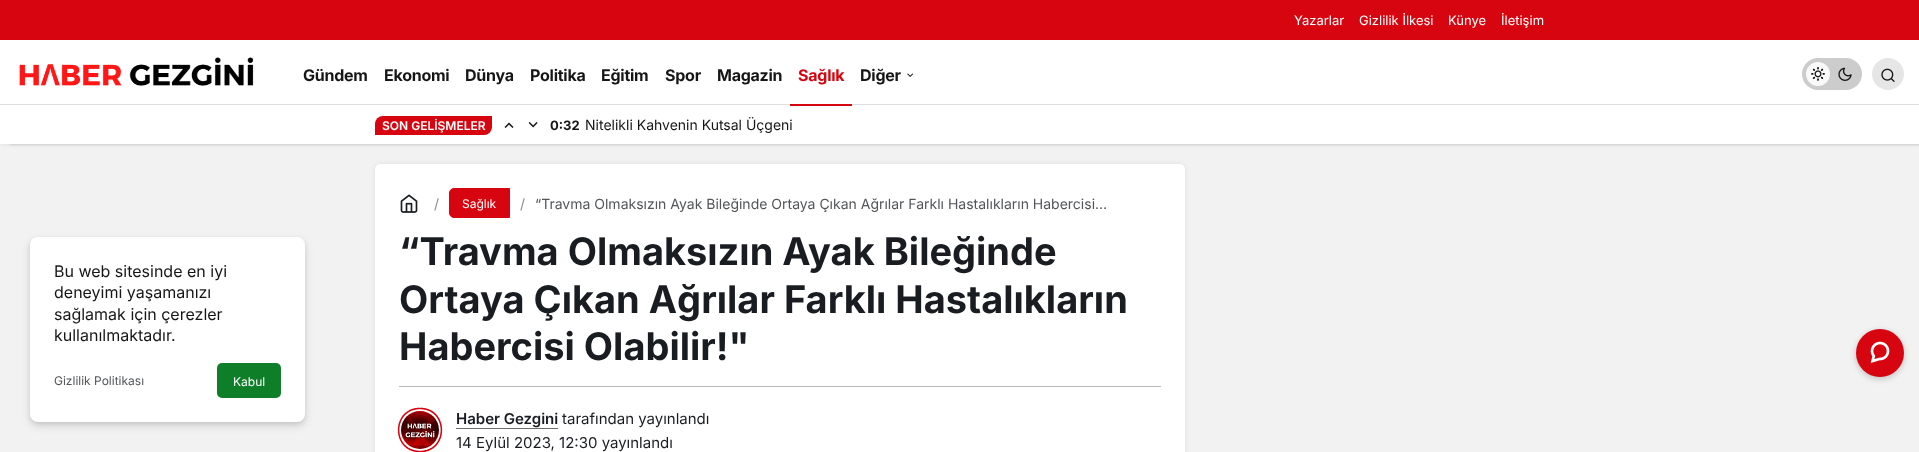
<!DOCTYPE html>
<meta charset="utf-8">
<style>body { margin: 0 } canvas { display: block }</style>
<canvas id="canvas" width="1919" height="452"></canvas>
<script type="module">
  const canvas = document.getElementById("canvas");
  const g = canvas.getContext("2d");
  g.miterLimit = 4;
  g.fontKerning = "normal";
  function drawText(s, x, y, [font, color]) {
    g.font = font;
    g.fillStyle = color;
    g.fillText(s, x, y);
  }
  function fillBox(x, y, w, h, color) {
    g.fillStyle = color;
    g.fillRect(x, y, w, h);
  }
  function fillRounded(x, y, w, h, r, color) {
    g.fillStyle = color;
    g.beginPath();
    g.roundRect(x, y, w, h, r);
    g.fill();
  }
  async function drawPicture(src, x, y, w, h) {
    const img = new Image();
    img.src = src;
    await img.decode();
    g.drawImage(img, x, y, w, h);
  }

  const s1 = ["13px Inter", "#FFFFFF"];
  const s2 = ["bold 16px Inter", "#161616"];
  const s3 = ["bold 16px Inter", "#D7050F"];
  const s4 = ["600 12px Inter", "#FFFFFF"];
  const s5 = ["bold 13px Inter", "#161616"];
  const s6 = ["14px Inter", "#161616"];
  const s7 = ["16px Inter", "#161616"];
  const s8 = ["12px Inter", "#535558"];
  const s9 = ["12px Inter", "#FFFFFF"];
  const s10 = ["14px Inter", "#8C8E90"];
  const s11 = ["14px Inter", "#535558"];
  const s12 = ["bold 38px Inter", "#191C20"];
  const s13 = ["600 15px Inter", "#191C20"];
  const s14 = ["15px Inter", "#191C20"];

  fillBox(0, 0, 1919, 452, "#F2F2F3");
  fillBox(0, 0, 1919, 40, "#D7050F");
  drawText("Yazarlar", 1294, 25, s1);
  drawText("Gizlilik İlkesi", 1359, 25, s1);
  drawText("Künye", 1448, 25, s1);
  drawText("İletişim", 1501, 25, s1);
  g.fillStyle = "rgba(0, 0, 0, 0.1)";
  g.filter = "blur(1px)";
  g.beginPath();
  g.rect(10, 105, 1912, 40);
  g.fill();
  g.filter = "none";
  g.filter = "blur(2.5px)";
  g.beginPath();
  g.rect(1, 104, 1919, 40);
  g.fill();
  g.filter = "none";
  fillBox(0, 40, 1919, 64, "#FFFFFF");
  await drawPicture("pic1.png", 19, 57, 235, 29);
  g.letterSpacing = "-0.25px";
  drawText("Gündem", 303, 81, s2);
  drawText("Ekonomi", 384, 81, s2);
  drawText("Dünya", 465, 81, s2);
  drawText("Politika", 530, 81, s2);
  drawText("Eğitim", 601, 81, s2);
  drawText("Spor", 665, 81, s2);
  drawText("Magazin", 717, 81, s2);
  drawText("Sağlık", 798, 81, s3);
  fillBox(0, 105, 1919, 39, "#FFFFFF");
  fillBox(0, 104, 1919, 1, "#DEDFE2");
  fillBox(790, 104, 62, 2, "#D7050F");
  drawText("Diğer", 860, 81, s2);
  await drawPicture("pic2.png", 907, 73, 7, 4);
  fillRounded(1802, 58, 60, 32, 16, "#CCCCCC");
  await drawPicture("pic4.png", 1811, 67, 14, 14);
  g.fillStyle = "rgba(255, 255, 255, 0.87)";
  g.beginPath();
  g.arc(1818, 74, 12, 0, Math.PI * 2);
  g.fill();
  await drawPicture("pic3.png", 1811, 67, 14, 14);
  await drawPicture("pic5.png", 1838, 67, 14, 14);
  g.fillStyle = "#E6E6E6";
  g.beginPath();
  g.arc(1888, 74, 16, 0, Math.PI * 2);
  g.fill();
  await drawPicture("pic6.png", 1881, 68, 14, 14);
  g.fillStyle = "#D7050F";
  g.beginPath();
  g.roundRect(375, 116, 117, 19, [8, 0, 8, 0]);
  g.fill();
  g.letterSpacing = "0px";
  drawText("SON GELİŞMELER", 382, 130, s4);
  await drawPicture("pic7.png", 504, 122, 10, 6);
  await drawPicture("pic8.png", 528, 122, 10, 6);
  drawText("0:32", 550, 130, s5);
  drawText("Nitelikli Kahvenin Kutsal Üçgeni", 585, 130, s6);
  g.fillStyle = "rgba(0, 0, 0, 0.08)";
  g.filter = "blur(2px)";
  g.beginPath();
  g.roundRect(30, 239, 275, 185, 8);
  g.fill();
  g.filter = "none";
  g.fillStyle = "rgba(0, 0, 0, 0.12)";
  g.filter = "blur(4px)";
  g.beginPath();
  g.roundRect(30, 241, 275, 185, 8);
  g.fill();
  g.filter = "none";
  fillRounded(30, 237, 275, 185, 8, "#FFFFFF");
  drawText("Bu web sitesinde en iyi", 54, 277, s7);
  drawText("deneyimi yaşamanızı", 54, 298, s7);
  drawText("sağlamak için çerezler", 54, 320, s7);
  drawText("kullanılmaktadır.", 54, 341, s7);
  drawText("Gizlilik Politikası", 54, 385, s8);
  fillRounded(217, 363, 64, 35, 5, "#0F7E29");
  drawText("Kabul", 233, 386, s9);
  g.fillStyle = "rgba(50, 53, 61, 0.1)";
  g.filter = "blur(2.5px)";
  g.beginPath();
  g.roundRect(375, 164, 810, 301, 5);
  g.fill();
  g.filter = "none";
  fillRounded(375, 164, 810, 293, 5, "#FFFFFF");
  await drawPicture("pic9.png", 400, 194, 18, 19);
  drawText("/", 434, 209, s10);
  g.fillStyle = "#D7050F";
  g.beginPath();
  g.roundRect(449.5, 188.5, 60, 29, [4.5, 0, 0, 4.5]);
  g.fill();
  g.strokeStyle = "#D7050F";
  g.stroke();
  drawText("Sağlık", 462, 208, s9);
  drawText("/", 520, 209, s10);
  drawText("“Travma Olmaksızın Ayak Bileğinde Ortaya Çıkan Ağrılar Farklı Hastalıkların Habercisi…", 535, 209, s11);
  drawText("“Travma Olmaksızın Ayak Bileğinde", 399, 265, s12);
  drawText("Ortaya Çıkan Ağrılar Farklı Hastalıkların", 399, 313, s12);
  drawText("Habercisi Olabilir!\"", 399, 360, s12);
  fillBox(399, 386, 762, 1, "#B9B9B9");
  await drawPicture("pic10.png", 401, 411, 38, 38);
  g.beginPath();
  g.moveTo(420, 408.5);
  g.bezierCurveTo(448.5, 408.5, 448.5, 451.5, 420, 451.5);
  g.bezierCurveTo(391.5, 451.5, 391.5, 408.5, 420, 408.5);
  g.closePath();
  g.lineWidth = 1.6;
  g.lineCap = "round";
  g.setLineDash([0.54, 0.54]);
  g.stroke();
  drawText("Haber Gezgini", 456, 424, s13);
  fillBox(456, 428, 102, 1, "#6E6E6E");
  drawText("tarafından yayınlandı", 562, 424, s14);
  drawText("14 Eylül 2023, 12:30 yayınlandı", 456, 448, s14);
  g.fillStyle = "rgba(0, 0, 0, 0.2)";
  g.filter = "blur(3px)";
  g.beginPath();
  g.roundRect(1856, 331, 48, 48, 24);
  g.fill();
  g.filter = "none";
  g.fillStyle = "#D7050F";
  g.beginPath();
  g.arc(1880, 353, 24, 0, Math.PI * 2);
  g.fill();
  await drawPicture("pic11.png", 1870, 341, 20, 22);
</script>
